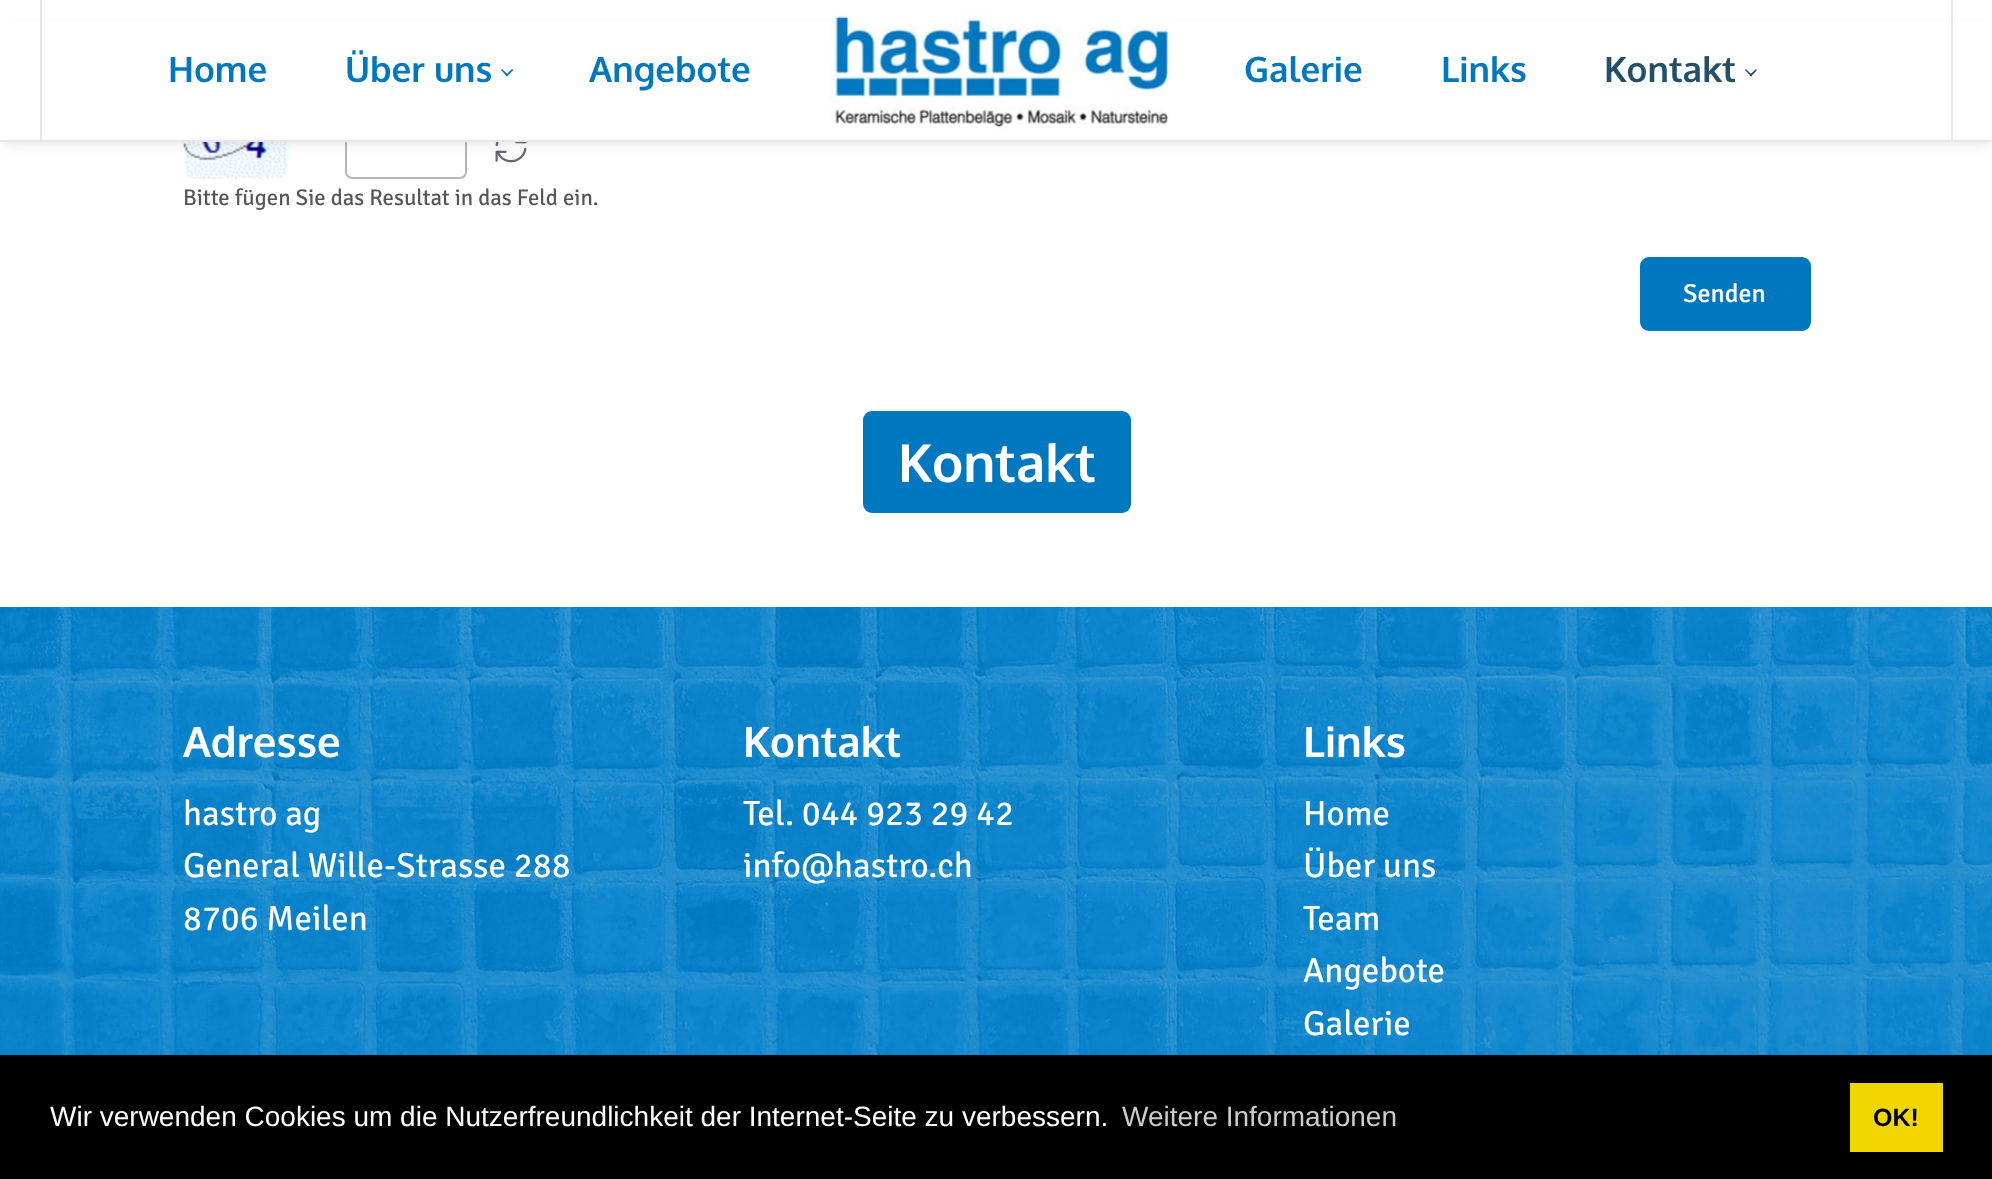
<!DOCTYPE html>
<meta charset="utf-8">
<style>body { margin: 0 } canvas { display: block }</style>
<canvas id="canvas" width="1992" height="1179"></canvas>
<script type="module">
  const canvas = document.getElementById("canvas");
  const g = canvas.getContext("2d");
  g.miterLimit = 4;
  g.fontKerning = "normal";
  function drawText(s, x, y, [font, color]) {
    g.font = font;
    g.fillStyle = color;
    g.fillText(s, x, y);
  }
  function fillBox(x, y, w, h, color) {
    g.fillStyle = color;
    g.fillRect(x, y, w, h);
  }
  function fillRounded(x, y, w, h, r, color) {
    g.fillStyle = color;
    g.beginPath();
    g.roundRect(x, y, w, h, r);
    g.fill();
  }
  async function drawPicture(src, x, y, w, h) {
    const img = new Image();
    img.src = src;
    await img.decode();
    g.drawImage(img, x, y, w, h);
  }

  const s1 = ["bold 35px Oxygen", "#0078C0"];
  const s2 = ["bold 35px Oxygen", "#234F6A"];
  const s3 = ["300 22.75px Signika Negative", "#555555"];
  const s4 = ["300 26px 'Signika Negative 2'", "#FFFFFF"];
  const s5 = ["bold 52.5px Oxygen", "#FFFFFF"];
  const s6 = ["bold 42px Oxygen", "#FFFFFF"];
  const s7 = ["300 35px Signika Negative", "#FFFFFF"];
  const s8 = ["28px Liberation Sans", "#FFFFFF"];
  const s9 = ["28px Liberation Sans", "#CCCCCC"];
  const s10 = ["bold 25px Liberation Sans", "#000000"];

  fillBox(0, 0, 1992, 1179, "#FFFFFF");
  await drawPicture("pic2.png", 183, 142, 106, 37);
  g.beginPath();
  g.roundRect(346, 110, 120, 68, 6);
  g.strokeStyle = "#B4B5BE";
  g.lineWidth = 2;
  g.stroke();
  await drawPicture("pic3.png", 495, 142, 32, 21);
  g.fillStyle = "rgba(0, 0, 0, 0.2)";
  g.filter = "blur(9px)";
  g.beginPath();
  g.rect(2, 37, 1990, 101);
  g.fill();
  g.filter = "none";
  fillBox(0, 22, 1992, 118, "#FFFFFF");
  fillBox(0, 140, 1992, 2, "#E6E6E6");
  fillBox(40, 0, 2, 140, "#E6E6E6");
  fillBox(1951, 0, 2, 140, "#E6E6E6");
  drawText("Home", 168, 82, s1);
  drawText("Über uns", 345, 82, s1);
  g.beginPath();
  g.moveTo(512, 69);
  g.lineTo(513.5, 70);
  g.lineTo(507, 76.5);
  g.lineTo(506, 75);
  g.closePath();
  g.fill();
  g.beginPath();
  g.moveTo(502, 69);
  g.lineTo(508.5, 75);
  g.lineTo(507, 76.5);
  g.lineTo(501, 70);
  g.closePath();
  g.fill();
  drawText("Angebote", 589, 82, s1);
  await drawPicture("pic1.png", 829, 9, 340, 120);
  drawText("Galerie", 1244, 82, s1);
  drawText("Links", 1441, 82, s1);
  drawText("Kontakt", 1604, 82, s2);
  g.beginPath();
  g.moveTo(1756, 69);
  g.lineTo(1757, 70);
  g.lineTo(1751, 76.5);
  g.lineTo(1749.5, 75);
  g.closePath();
  g.fill();
  g.beginPath();
  g.moveTo(1746, 69);
  g.lineTo(1752, 75);
  g.lineTo(1751, 76.5);
  g.lineTo(1745, 70);
  g.closePath();
  g.fill();
  drawText("Bitte fügen Sie das Resultat in das Feld ein.", 183, 205, s3);
  fillRounded(1640, 257, 171, 74, 9, "#0078C0");
  drawText("Senden", 1683, 302, s4);
  fillRounded(863, 411, 268, 102, 9, "#0078C0");
  drawText("Kontakt", 898, 482, s5);
  await drawPicture("pic4.png", 0, 607, 1992, 448);
  drawText("Adresse", 183, 757, s6);
  drawText("hastro ag", 183, 825, s7);
  drawText("General Wille-Strasse 288", 183, 877, s7);
  drawText("8706 Meilen", 183, 930, s7);
  drawText("Kontakt", 743, 757, s6);
  drawText("Tel. 044 923 29 42", 743, 825, s7);
  drawText("info@hastro.ch", 743, 877, s7);
  drawText("Links", 1303, 757, s6);
  drawText("Home", 1303, 825, s7);
  drawText("Über uns", 1303, 877, s7);
  drawText("Team", 1303, 930, s7);
  drawText("Angebote", 1303, 982, s7);
  drawText("Galerie", 1303, 1035, s7);
  fillBox(0, 1055, 1992, 124, "#000000");
  drawText("Wir verwenden Cookies um die Nutzerfreundlichkeit der Internet-Seite zu verbessern.", 50, 1126, s8);
  drawText("Weitere Informationen", 1122, 1126, s9);
  fillBox(1850, 1083, 93, 69, "#F1D600");
  drawText("OK!", 1873, 1126, s10);
</script>
